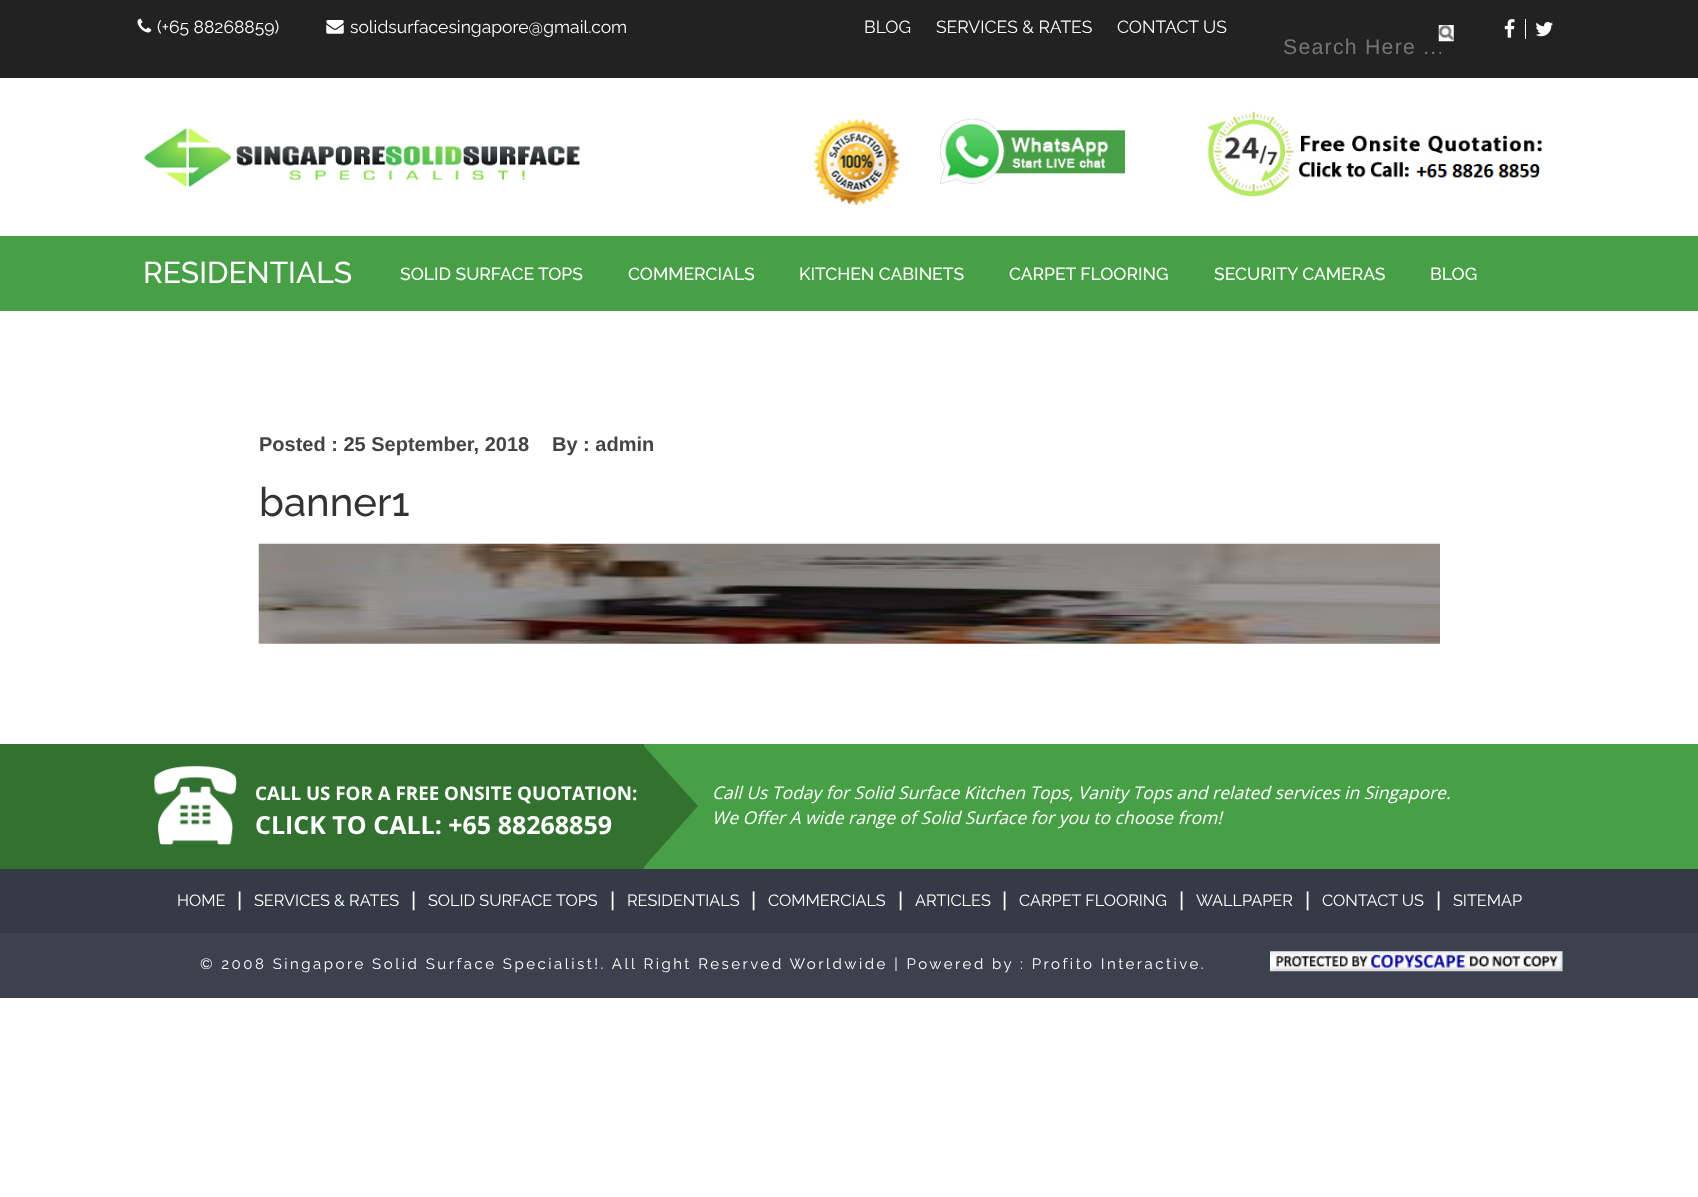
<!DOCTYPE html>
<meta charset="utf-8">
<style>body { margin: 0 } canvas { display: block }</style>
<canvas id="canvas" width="1698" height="1197"></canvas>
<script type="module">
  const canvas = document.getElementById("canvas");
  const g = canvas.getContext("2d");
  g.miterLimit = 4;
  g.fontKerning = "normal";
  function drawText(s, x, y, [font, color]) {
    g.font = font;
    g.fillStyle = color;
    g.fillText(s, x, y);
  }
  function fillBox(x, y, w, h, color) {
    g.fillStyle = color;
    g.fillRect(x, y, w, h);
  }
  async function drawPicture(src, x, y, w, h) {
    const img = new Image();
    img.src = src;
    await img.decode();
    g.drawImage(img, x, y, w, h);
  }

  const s1 = ["17.5px Raleway", "#FFFFFF"];
  const s2 = ["21.25px Liberation Sans", "#757575"];
  const s3 = ["500 30px Raleway", "#FFFFFF"];
  const s4 = ["500 17.5px Raleway", "#FFFFFF"];
  const s5 = ["bold 20px Liberation Sans", "#444444"];
  const s6 = ["500 40px Raleway", "#333333"];
  const s7 = ["bold 18.75px Open Sans", "#FFFFFF"];
  const s8 = ["bold 25px Open Sans", "#FFFFFF"];
  const s9 = ["italic 17.5px Open Sans", "#FFFFFF"];
  const s10 = ["16.25px Raleway", "#FFFFFF"];
  const s11 = ["20px Liberation Sans", "#FFFFFF"];
  const s12 = ["15px Raleway", "#FFFFFF"];

  fillBox(0, 0, 1698, 1197, "#FFFFFF");
  fillBox(0, 0, 1698, 78, "#222222");
  await drawPicture("pic1.png", 137, 18, 15, 15);
  drawText("(+65 88268859)", 157, 33, s1);
  await drawPicture("pic2.png", 326, 20, 18, 14);
  drawText("solidsurfacesingapore@gmail.com", 350, 33, s1);
  drawText("BLOG", 864, 33, s1);
  drawText("SERVICES & RATES", 936, 33, s1);
  drawText("CONTACT US", 1117, 33, s1);
  fillBox(1525, 19, 1, 20, "#FFFFFF");
  await drawPicture("pic3.png", 1504, 19, 11, 19);
  await drawPicture("pic4.png", 1535, 22, 18, 15);
  g.save();
  g.beginPath();
  g.rect(1283, 35, 158, 25);
  g.clip();
  g.letterSpacing = "1.25px";
  drawText("Search Here ...", 1283, 54, s2);
  g.restore();
  await drawPicture("pic5.png", 1438, 25, 16, 17);
  await drawPicture("pic6.png", 144, 128, 436, 59);
  await drawPicture("pic7.png", 813, 118, 87, 87);
  await drawPicture("pic8.png", 940, 118, 185, 66);
  await drawPicture("pic9.png", 1207, 111, 335, 86);
  fillBox(0, 236, 1698, 75, "#47A045");
  drawText("RESIDENTIALS", 143, 283, s3);
  drawText("SOLID SURFACE TOPS", 400, 280, s4);
  drawText("COMMERCIALS", 628, 280, s4);
  drawText("KITCHEN CABINETS", 799, 280, s4);
  drawText("CARPET FLOORING", 1009, 280, s4);
  drawText("SECURITY CAMERAS", 1214, 280, s4);
  drawText("BLOG", 1430, 280, s4);
  drawText("Posted : 25 September, 2018", 259, 451, s5);
  drawText("By : admin", 552, 451, s5);
  drawText("banner1", 259, 516, s6);
  await drawPicture("pic10.png", 258, 543, 1182, 101);
  fillBox(644, 744, 1054, 125, "#47A045");
  fillBox(0, 744, 644, 125, "#337131");
  await drawPicture("pic11.png", 153, 765, 84, 80);
  drawText("CALL US FOR A FREE ONSITE QUOTATION:", 255, 800, s7);
  g.fillStyle = "#337131";
  g.beginPath();
  g.moveTo(642, 869);
  g.lineTo(642, 744);
  g.lineTo(698, 806);
  g.closePath();
  g.fill();
  drawText("CLICK TO CALL: +65 88268859", 255, 834, s8);
  drawText("Call Us Today for Solid Surface Kitchen Tops, Vanity Tops and related services in Singapore.", 712, 799, s9);
  drawText("We Offer A wide range of Solid Surface for you to choose from!", 712, 824, s9);
  fillBox(0, 869, 1698, 64, "#353B46");
  drawText("HOME", 177, 906, s10);
  drawText("|", 237, 906, s11);
  drawText("SERVICES & RATES", 254, 906, s10);
  drawText("|", 411, 906, s11);
  drawText("SOLID SURFACE TOPS", 428, 906, s10);
  drawText("|", 610, 906, s11);
  drawText("RESIDENTIALS", 627, 906, s10);
  drawText("|", 751, 906, s11);
  drawText("COMMERCIALS", 768, 906, s10);
  drawText("|", 898, 906, s11);
  drawText("ARTICLES", 915, 906, s10);
  drawText("|", 1002, 906, s11);
  drawText("CARPET FLOORING", 1019, 906, s10);
  drawText("|", 1179, 906, s11);
  drawText("WALLPAPER", 1196, 906, s10);
  drawText("|", 1305, 906, s11);
  drawText("CONTACT US", 1322, 906, s10);
  drawText("|", 1436, 906, s11);
  drawText("SITEMAP", 1453, 906, s10);
  fillBox(0, 933, 1698, 65, "#3B424E");
  g.letterSpacing = "2.5px";
  drawText("© 2008 Singapore Solid Surface Specialist!. All Right Reserved Worldwide | Powered by : Profito Interactive.", 200, 969, s12);
  await drawPicture("pic12.png", 1270, 951, 293, 21);
</script>
